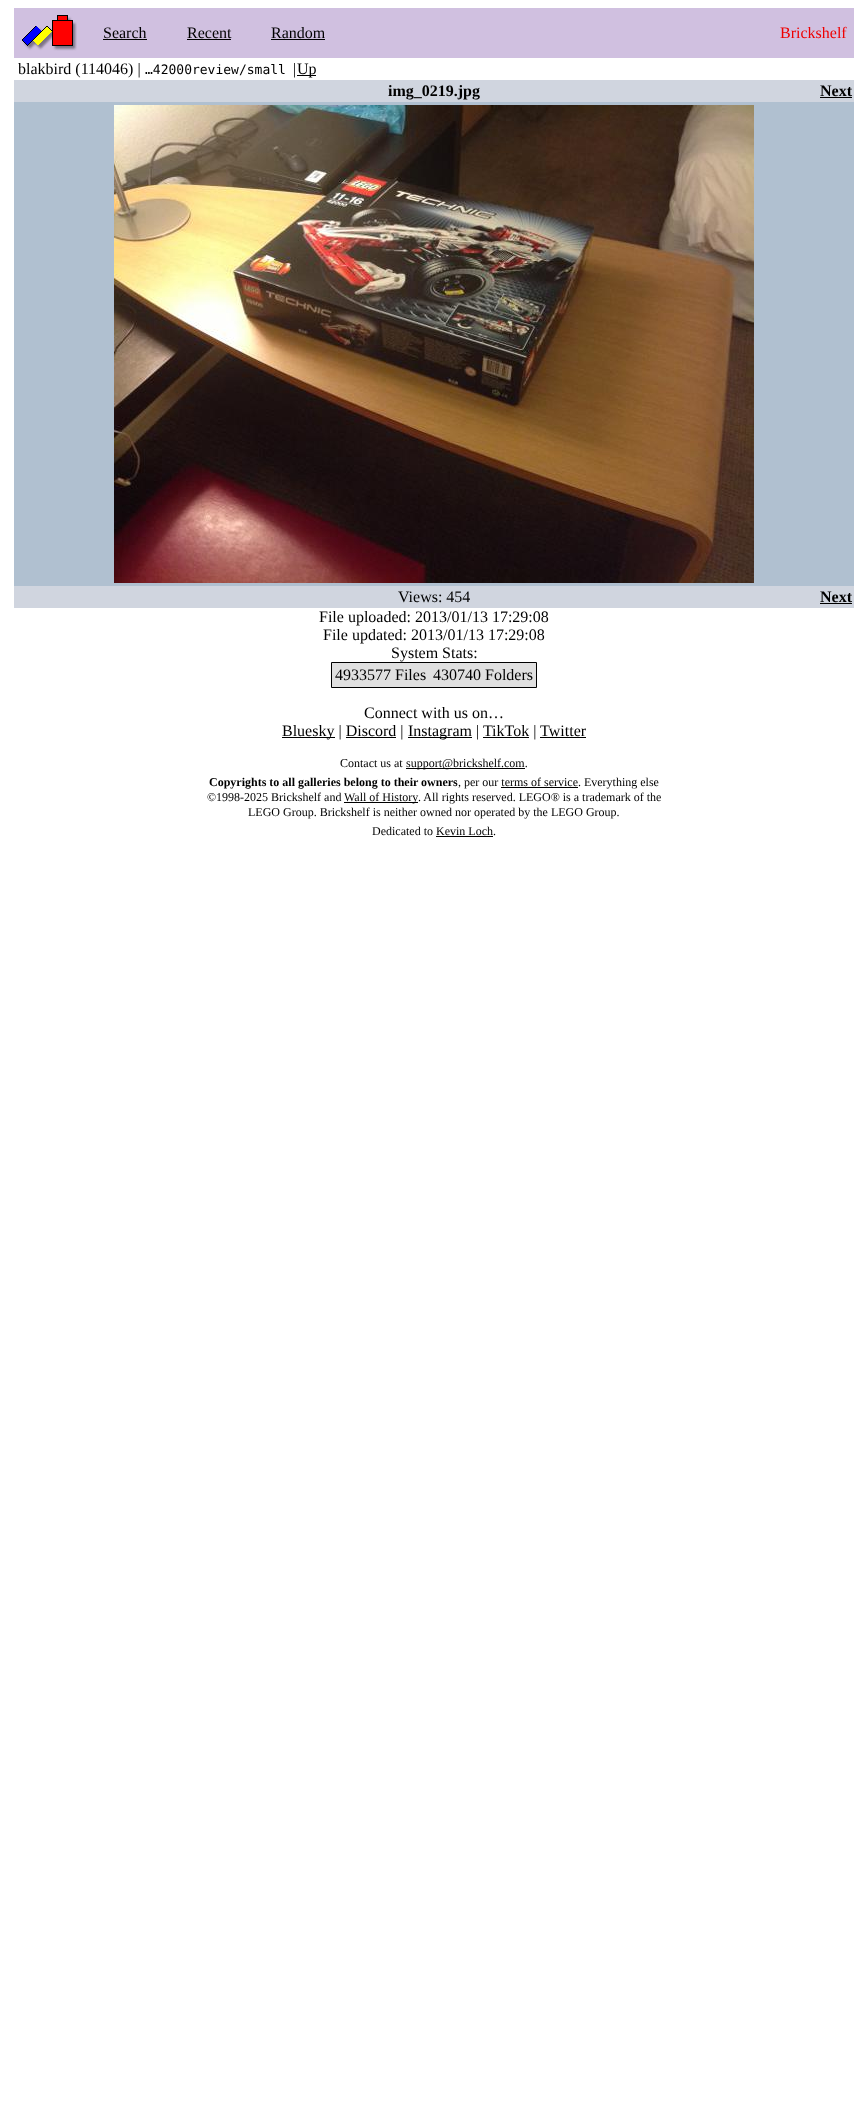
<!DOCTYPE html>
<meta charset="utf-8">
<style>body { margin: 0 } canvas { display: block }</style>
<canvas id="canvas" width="868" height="2124"></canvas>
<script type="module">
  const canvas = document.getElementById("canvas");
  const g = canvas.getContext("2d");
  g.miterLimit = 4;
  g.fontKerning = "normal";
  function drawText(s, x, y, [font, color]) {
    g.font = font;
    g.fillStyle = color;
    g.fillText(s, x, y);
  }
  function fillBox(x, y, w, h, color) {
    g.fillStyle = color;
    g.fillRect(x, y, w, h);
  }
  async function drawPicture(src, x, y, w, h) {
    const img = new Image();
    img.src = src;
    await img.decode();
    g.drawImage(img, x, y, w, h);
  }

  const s1 = ["16px Liberation Serif", "#000000"];
  const s2 = ["16px Liberation Serif", "#EF0000"];
  const s3 = ["13px DejaVu Sans Mono", "#000000"];
  const s4 = ["bold 16px Liberation Serif", "#000000"];
  const s5 = ["12px Liberation Serif", "#000000"];
  const s6 = ["bold 12px Liberation Serif", "#000000"];

  fillBox(0, 0, 868, 2124, "#FFFFFF");
  fillBox(14, 8, 840, 50, "#D0C0E0");
  await drawPicture("pic1.png", 22, 15, 55, 36);
  drawText("Search", 103, 38, s1);
  fillBox(103, 39, 44, 1, "#000000");
  drawText("Recent", 187, 38, s1);
  fillBox(187, 39, 44, 1, "#000000");
  drawText("Random", 271, 38, s1);
  fillBox(271, 39, 54, 1, "#000000");
  drawText("Brickshelf", 780, 38, s2);
  drawText("blakbird (114046) |", 18, 74, s1);
  drawText("…42000review/small", 145, 74, s3);
  drawText("|", 293, 74, s1);
  fillBox(297, 75, 19, 1, "#000000");
  drawText("Up", 297, 74, s1);
  fillBox(14, 80, 840, 22, "#D0D5DF");
  drawText("img_0219.jpg", 388, 96, s4);
  drawText("Next", 820, 96, s4);
  fillBox(820, 97, 32, 1, "#000000");
  fillBox(14, 102, 840, 484, "#B0C0D0");
  await drawPicture("pic2.png", 114, 105, 640, 478);
  fillBox(14, 586, 840, 22, "#D0D5DF");
  drawText("Views: 454", 398, 602, s1);
  drawText("Next", 820, 602, s4);
  fillBox(820, 603, 32, 1, "#000000");
  drawText("File uploaded: 2013/01/13 17:29:08", 319, 622, s1);
  drawText("File updated: 2013/01/13 17:29:08", 323, 640, s1);
  drawText("System Stats:", 391, 658, s1);
  g.fillStyle = "#E0E0E0";
  g.beginPath();
  g.rect(331.5, 662.5, 205, 25);
  g.fill();
  g.strokeStyle = "#000000";
  g.stroke();
  drawText("4933577 Files", 335, 680, s1);
  drawText("430740 Folders", 433, 680, s1);
  drawText("Connect with us on…", 364, 718, s1);
  fillBox(282, 737, 53, 1, "#000000");
  drawText("Bluesky | Discord |", 282, 736, s1);
  fillBox(408, 737, 64, 1, "#000000");
  drawText("Instagram | TikTok | Twitter", 408, 736, s1);
  fillBox(346, 737, 50, 1, "#000000");
  fillBox(483, 737, 46, 1, "#000000");
  fillBox(540, 737, 46, 1, "#000000");
  drawText("Contact us at", 340, 767, s5);
  fillBox(406, 768, 119, 1, "#000000");
  drawText("support@brickshelf.com.", 406, 767, s5);
  drawText("Copyrights to all galleries belong to their owners", 209, 786, s6);
  drawText(", per our terms of service. Everything else", 458, 786, s5);
  fillBox(501, 787, 77, 1, "#000000");
  drawText("©1998-2025 Brickshelf and", 207, 801, s5);
  fillBox(344, 802, 74, 1, "#000000");
  drawText("Wall of History", 344, 801, s5);
  drawText(". All rights reserved. LEGO® is a trademark of the", 418, 801, s5);
  drawText("LEGO Group. Brickshelf is neither owned nor operated by the LEGO Group.", 248, 816, s5);
  drawText("Dedicated to Kevin Loch.", 372, 835, s5);
  fillBox(436, 836, 57, 1, "#000000");
</script>
